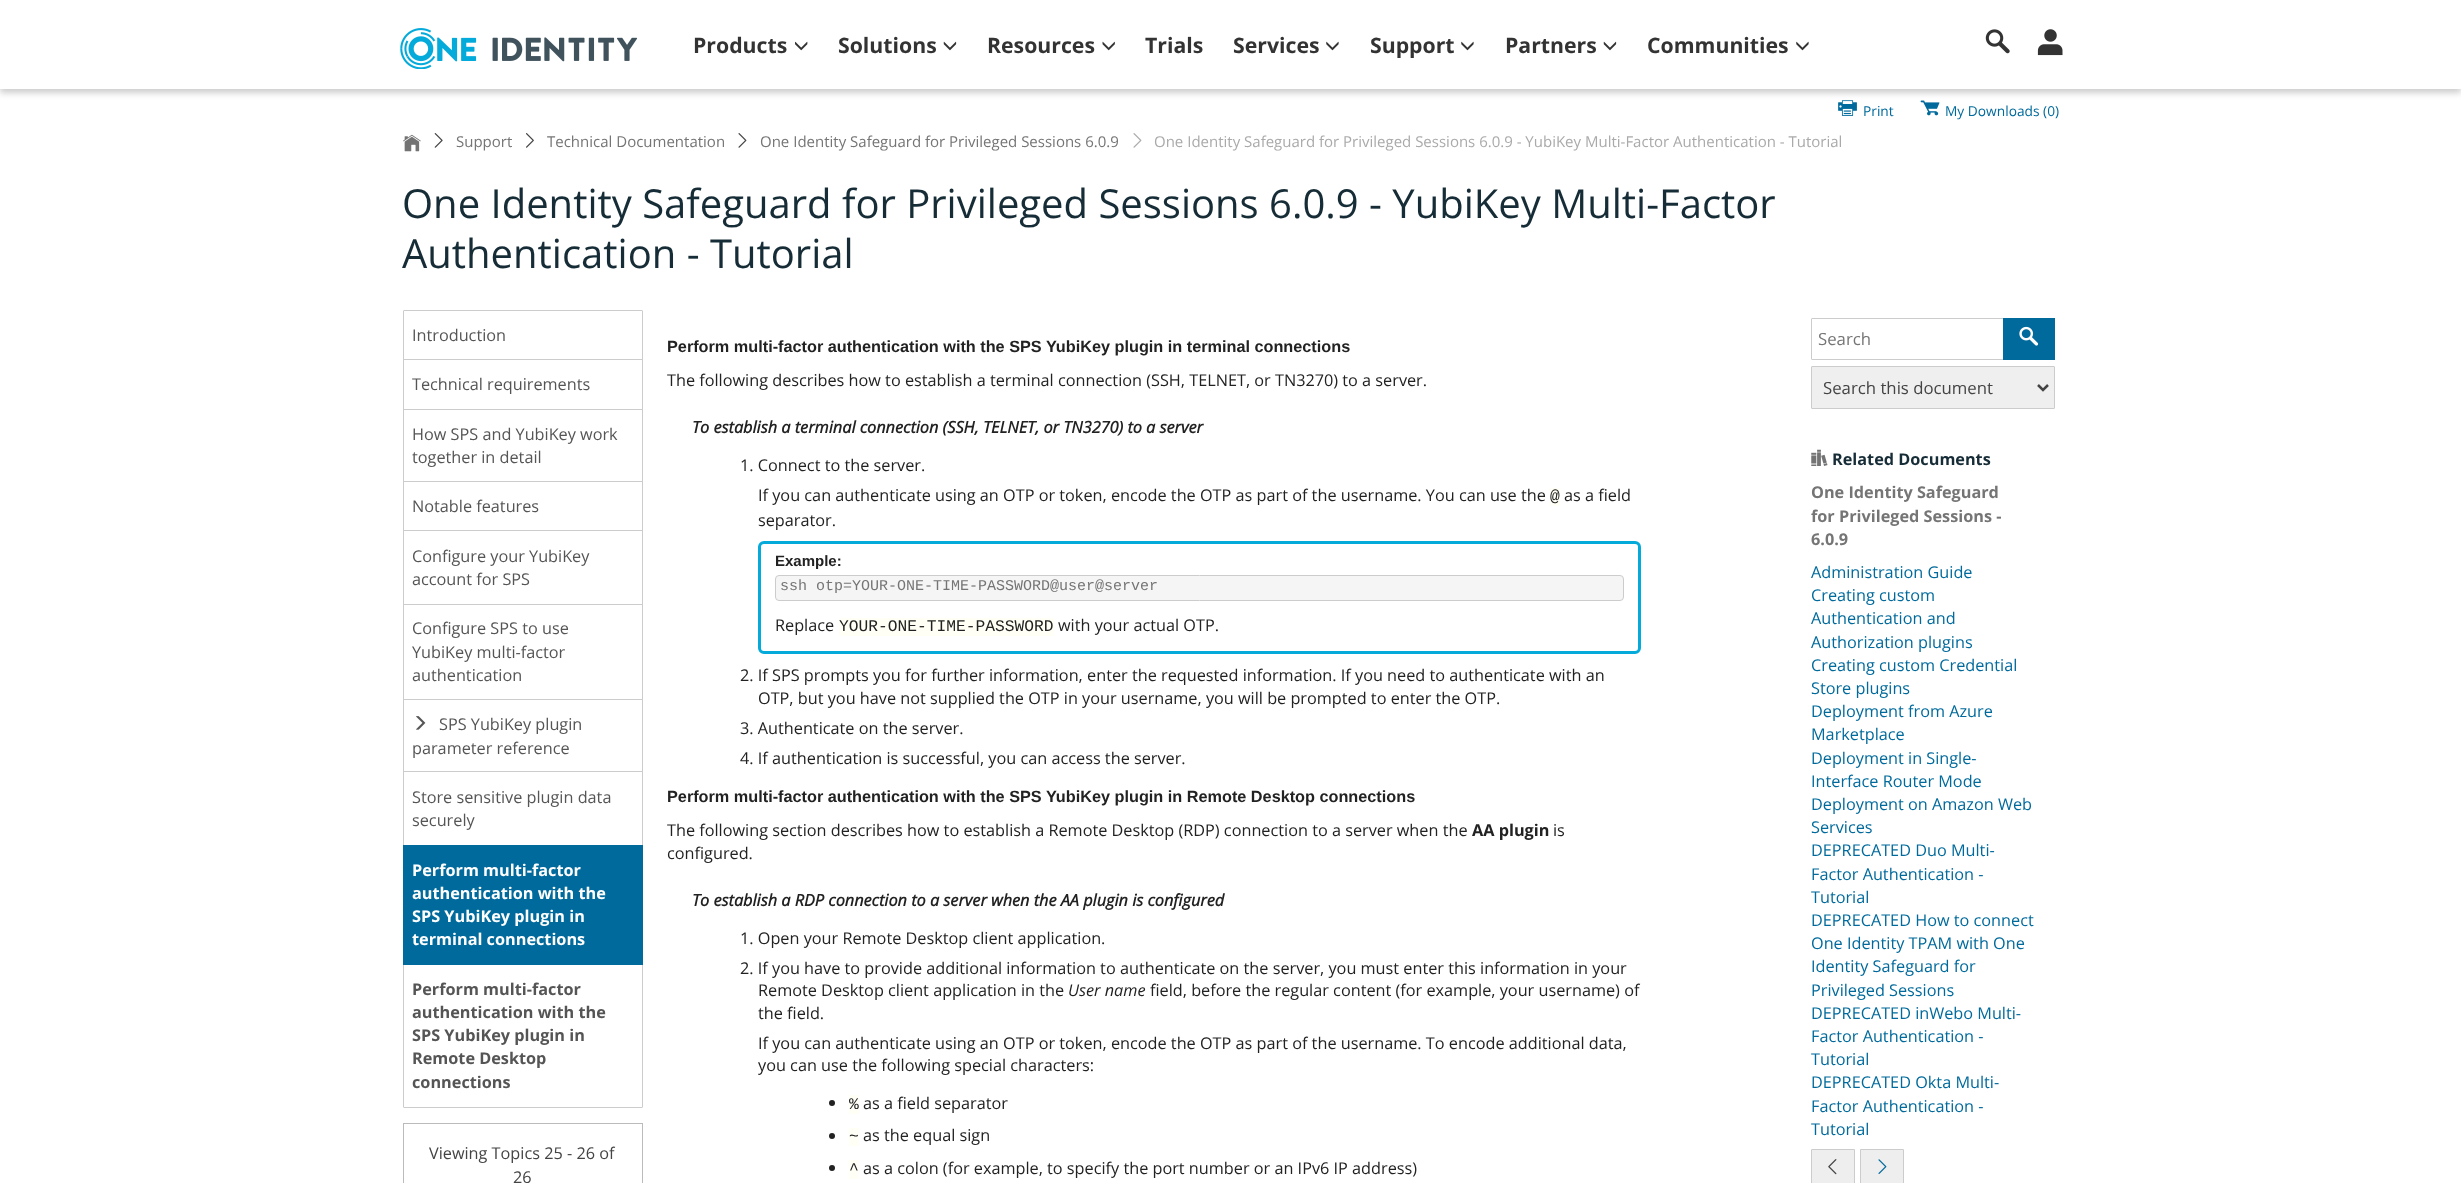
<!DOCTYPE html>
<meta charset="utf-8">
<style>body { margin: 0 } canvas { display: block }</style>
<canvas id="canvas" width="2461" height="1183"></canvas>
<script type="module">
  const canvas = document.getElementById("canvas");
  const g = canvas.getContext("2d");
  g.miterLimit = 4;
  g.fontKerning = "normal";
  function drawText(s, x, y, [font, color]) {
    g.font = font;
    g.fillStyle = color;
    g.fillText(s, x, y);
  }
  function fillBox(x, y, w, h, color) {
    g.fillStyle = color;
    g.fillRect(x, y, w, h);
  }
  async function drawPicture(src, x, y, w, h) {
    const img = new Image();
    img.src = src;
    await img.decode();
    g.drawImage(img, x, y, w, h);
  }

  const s1 = ["bold 21.25px Open Sans", "#333333"];
  const s2 = ["13.75px Open Sans", "#016A9C"];
  const s3 = ["15px Open Sans", "#757575"];
  const s4 = ["15px Open Sans", "#AAAAAA"];
  const s5 = ["40px Open Sans", "#162C36"];
  const s6 = ["16.25px Open Sans", "#555555"];
  const s7 = ["bold 16.25px Open Sans", "#FFFFFF"];
  const s8 = ["bold 16.25px Open Sans", "#555555"];
  const s9 = ["16.25px Open Sans", "#444444"];
  const s10 = ["bold 16.25px Liberation Sans", "#222222"];
  const s11 = ["16.25px Open Sans", "#222222"];
  const s12 = ["italic bold 16.25px Open Sans", "#222222"];
  const s13 = ["16.25px Liberation Mono", "#222222"];
  const s14 = ["bold 15px Liberation Sans", "#222222"];
  const s15 = ["15px Liberation Mono", "#757575"];
  const s16 = ["bold 16.25px Open Sans", "#222222"];
  const s17 = ["italic 16.25px Open Sans", "#222222"];
  const s18 = ["16.75px Open Sans", "#757575"];
  const s19 = ["16.75px Open Sans", "#444444"];
  const s20 = ["bold 16.25px Open Sans", "#162C36"];
  const s21 = ["bold 16.25px Open Sans", "#757575"];
  const s22 = ["16.25px Open Sans", "#016A9C"];

  fillBox(0, 0, 2461, 1183, "#FFFFFF");
  await drawPicture("pic8.png", 1838, 100, 19, 16);
  await drawPicture("pic9.png", 1920, 100, 20, 16);
  g.save();
  g.beginPath();
  g.moveTo(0, 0);
  g.lineTo(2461, 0);
  g.lineTo(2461, 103);
  g.lineTo(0, 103);
  g.closePath();
  g.moveTo(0, -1);
  g.lineTo(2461, -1);
  g.lineTo(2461, 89);
  g.lineTo(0, 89);
  g.closePath();
  g.clip("evenodd");
  g.fillStyle = "#CDCDCD";
  g.filter = "blur(3px)";
  g.beginPath();
  g.rect(0, 3, 2461, 90);
  g.fill();
  g.filter = "none";
  g.restore();
  await drawPicture("pic1.png", 400, 28, 238, 41);
  drawText("Products", 693, 53, s1);
  await drawPicture("pic2.png", 795, 41, 13, 10);
  drawText("Solutions", 838, 53, s1);
  await drawPicture("pic3.png", 943, 41, 14, 10);
  drawText("Resources", 987, 53, s1);
  await drawPicture("pic4.png", 1102, 41, 13, 10);
  drawText("Trials", 1145, 53, s1);
  drawText("Services", 1233, 53, s1);
  await drawPicture("pic5.png", 1326, 41, 13, 10);
  drawText("Support", 1370, 53, s1);
  await drawPicture("pic5.png", 1461, 41, 13, 10);
  drawText("Partners", 1505, 53, s1);
  await drawPicture("pic3.png", 1603, 41, 14, 10);
  drawText("Communities", 1647, 53, s1);
  await drawPicture("pic5.png", 1796, 41, 13, 10);
  await drawPicture("pic6.png", 1985, 29, 25, 25);
  await drawPicture("pic7.png", 2037, 29, 26, 27);
  drawText("Print", 1863, 116, s2);
  drawText("My Downloads (0)", 1945, 116, s2);
  await drawPicture("pic10.png", 403, 134, 18, 18);
  await drawPicture("pic11.png", 434, 133, 9, 15);
  drawText("Support", 456, 147, s3);
  await drawPicture("pic12.png", 526, 133, 8, 15);
  drawText("Technical Documentation", 547, 147, s3);
  await drawPicture("pic13.png", 738, 133, 9, 15);
  drawText("One Identity Safeguard for Privileged Sessions 6.0.9", 760, 147, s3);
  await drawPicture("pic14.png", 1133, 133, 9, 15);
  drawText("One Identity Safeguard for Privileged Sessions 6.0.9 - YubiKey Multi-Factor Authentication - Tutorial", 1154, 147, s4);
  drawText("One Identity Safeguard for Privileged Sessions 6.0.9 - YubiKey Multi-Factor", 402, 218, s5);
  drawText("Authentication - Tutorial", 402, 268, s5);
  g.beginPath();
  g.roundRect(403.5, 310.5, 239, 49, [0.5, 0.5, 0, 0]);
  g.strokeStyle = "#CCCCCC";
  g.stroke();
  drawText("Introduction", 412, 341, s6);
  g.strokeRect(403.5, 359.5, 239, 50);
  drawText("Technical requirements", 412, 390, s6);
  g.strokeRect(403.5, 409.5, 239, 73);
  drawText("How SPS and YubiKey work", 412, 440, s6);
  drawText("together in detail", 412, 463, s6);
  fillBox(404, 482, 238, 1, "#FFFFFF");
  g.strokeRect(403.5, 481.5, 239, 49);
  drawText("Notable features", 412, 512, s6);
  g.strokeRect(403.5, 530.5, 239, 74);
  drawText("Configure your YubiKey", 412, 562, s6);
  drawText("account for SPS", 412, 585, s6);
  g.strokeRect(403.5, 604.5, 239, 95);
  drawText("Configure SPS to use", 412, 634, s6);
  drawText("YubiKey multi-factor", 412, 658, s6);
  drawText("authentication", 412, 681, s6);
  g.strokeRect(403.5, 699.5, 239, 73);
  await drawPicture("pic15.png", 416, 716, 10, 14);
  drawText("SPS YubiKey plugin", 439, 730, s6);
  drawText("parameter reference", 412, 754, s6);
  fillBox(404, 772, 238, 1, "#FFFFFF");
  g.strokeRect(403.5, 771.5, 239, 74);
  drawText("Store sensitive plugin data", 412, 803, s6);
  drawText("securely", 412, 826, s6);
  g.beginPath();
  g.roundRect(403.5, 964.5, 239, 143, [0, 0, 0.5, 0.5]);
  g.stroke();
  fillBox(403, 845, 240, 120, "#016A9C");
  drawText("Perform multi-factor", 412, 876, s7);
  drawText("authentication with the", 412, 899, s7);
  drawText("SPS YubiKey plugin in", 412, 922, s7);
  drawText("terminal connections", 412, 945, s7);
  drawText("Perform multi-factor", 412, 995, s8);
  drawText("authentication with the", 412, 1018, s8);
  drawText("SPS YubiKey plugin in", 412, 1041, s8);
  drawText("Remote Desktop", 412, 1064, s8);
  drawText("connections", 412, 1088, s8);
  g.strokeStyle = "#BBBBBB";
  g.strokeRect(403.5, 1123.5, 239, 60);
  drawText("Viewing Topics 25 - 26 of", 429, 1159, s9);
  drawText("26", 513, 1183, s9);
  drawText("Perform multi-factor authentication with the SPS YubiKey plugin in terminal connections", 667, 352, s10);
  drawText("The following describes how to establish a terminal connection (SSH, TELNET, or TN3270) to a server.", 667, 386, s11);
  drawText("To establish a terminal connection (SSH, TELNET, or TN3270) to a server", 692, 433, s12);
  drawText("1. Connect to the server.", 740, 471, s11);
  drawText("If you can authenticate using an OTP or token, encode the OTP as part of the username. You can use the", 758, 501, s11);
  fillBox(1550, 488, 10, 18, "#FFFFF6");
  drawText("@", 1550, 501, s13);
  drawText("as a field", 1564, 501, s11);
  drawText("separator.", 758, 526, s11);
  g.beginPath();
  g.roundRect(759.5, 542.5, 880, 110, 4.5);
  g.strokeStyle = "#04AADA";
  g.lineWidth = 3;
  g.stroke();
  drawText("Example:", 775, 566, s14);
  g.fillStyle = "#F5F5F5";
  g.beginPath();
  g.roundRect(775.5, 575.5, 848, 25, 3.5);
  g.fill();
  g.strokeStyle = "#CCCCCC";
  g.lineWidth = 1;
  g.stroke();
  drawText("ssh otp=YOUR-ONE-TIME-PASSWORD@user@server", 780, 590, s15);
  drawText("Replace", 775, 631, s11);
  fillBox(839, 618, 215, 18, "#FFFFF6");
  drawText("YOUR-ONE-TIME-PASSWORD", 839, 631, s13);
  drawText("with your actual OTP.", 1058, 631, s11);
  drawText("2. If SPS prompts you for further information, enter the requested information. If you need to authenticate with an", 740, 681, s11);
  drawText("OTP, but you have not supplied the OTP in your username, you will be prompted to enter the OTP.", 758, 704, s11);
  drawText("3. Authenticate on the server.", 740, 734, s11);
  drawText("4. If authentication is successful, you can access the server.", 740, 764, s11);
  drawText("Perform multi-factor authentication with the SPS YubiKey plugin in Remote Desktop connections", 667, 802, s10);
  drawText("The following section describes how to establish a Remote Desktop (RDP) connection to a server when the", 667, 836, s11);
  drawText("AA plugin", 1472, 836, s16);
  drawText("is", 1553, 836, s11);
  drawText("configured.", 667, 859, s11);
  drawText("To establish a RDP connection to a server when the AA plugin is configured", 692, 906, s12);
  drawText("1. Open your Remote Desktop client application.", 740, 944, s11);
  drawText("2. If you have to provide additional information to authenticate on the server, you must enter this information in your", 740, 974, s11);
  drawText("Remote Desktop client application in the", 758, 996, s11);
  drawText("User name", 1068, 996, s17);
  drawText("field, before the regular content (for example, your username) of", 1150, 996, s11);
  drawText("the field.", 758, 1019, s11);
  drawText("If you can authenticate using an OTP or token, encode the OTP as part of the username. To encode additional data,", 758, 1049, s11);
  drawText("you can use the following special characters:", 758, 1071, s11);
  g.beginPath();
  g.arc(832, 1103, 3, 0, Math.PI * 2);
  g.fill();
  fillBox(849, 1095, 10, 19, "#FFFFF6");
  drawText("%", 849, 1109, s13);
  drawText("as a field separator", 863, 1109, s11);
  g.beginPath();
  g.arc(832, 1136, 3, 0, Math.PI * 2);
  g.fill();
  fillBox(849, 1128, 10, 18, "#FFFFF6");
  drawText("~", 849, 1141, s13);
  drawText("as the equal sign", 863, 1141, s11);
  g.beginPath();
  g.arc(832, 1168, 3, 0, Math.PI * 2);
  g.fill();
  fillBox(849, 1160, 10, 19, "#FFFFF6");
  drawText("^", 849, 1174, s13);
  drawText("as a colon (for example, to specify the port number or an IPv6 IP address)", 863, 1174, s11);
  g.beginPath();
  g.roundRect(1811.5, 318.5, 193, 41, 0.5);
  g.stroke();
  drawText("Search", 1818, 345, s18);
  fillBox(2003, 318, 52, 42, "#016A9C");
  await drawPicture("pic16.png", 2019, 326, 20, 20);
  g.fillStyle = "#EFEFEF";
  g.beginPath();
  g.roundRect(1811.5, 366.5, 243, 42, 0.5);
  g.fill();
  g.stroke();
  g.beginPath();
  g.moveTo(2038, 385);
  g.lineTo(2043, 390);
  g.lineTo(2048, 385);
  g.strokeStyle = "#444444";
  g.lineWidth = 2.5;
  g.stroke();
  drawText("Search this document", 1823, 394, s19);
  await drawPicture("pic17.png", 1811, 449, 17, 17);
  drawText("Related Documents", 1832, 465, s20);
  drawText("One Identity Safeguard", 1811, 498, s21);
  drawText("for Privileged Sessions -", 1811, 522, s21);
  drawText("6.0.9", 1811, 545, s21);
  drawText("Administration Guide", 1811, 578, s22);
  drawText("Creating custom", 1811, 601, s22);
  drawText("Authentication and", 1811, 624, s22);
  drawText("Authorization plugins", 1811, 648, s22);
  drawText("Creating custom Credential", 1811, 671, s22);
  drawText("Store plugins", 1811, 694, s22);
  drawText("Deployment from Azure", 1811, 717, s22);
  drawText("Marketplace", 1811, 740, s22);
  drawText("Deployment in Single-", 1811, 764, s22);
  drawText("Interface Router Mode", 1811, 787, s22);
  drawText("Deployment on Amazon Web", 1811, 810, s22);
  drawText("Services", 1811, 833, s22);
  drawText("DEPRECATED Duo Multi-", 1811, 856, s22);
  drawText("Factor Authentication -", 1811, 880, s22);
  drawText("Tutorial", 1811, 903, s22);
  drawText("DEPRECATED How to connect", 1811, 926, s22);
  drawText("One Identity TPAM with One", 1811, 949, s22);
  drawText("Identity Safeguard for", 1811, 972, s22);
  drawText("Privileged Sessions", 1811, 996, s22);
  drawText("DEPRECATED inWebo Multi-", 1811, 1019, s22);
  drawText("Factor Authentication -", 1811, 1042, s22);
  drawText("Tutorial", 1811, 1065, s22);
  drawText("DEPRECATED Okta Multi-", 1811, 1088, s22);
  drawText("Factor Authentication -", 1811, 1112, s22);
  drawText("Tutorial", 1811, 1135, s22);
  g.fillStyle = "#EEEEEE";
  g.beginPath();
  g.moveTo(1812, 1149.5);
  g.lineTo(1854.5, 1149.5);
  g.lineTo(1854.5, 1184.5);
  g.lineTo(1812, 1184.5);
  g.bezierCurveTo(1811.5, 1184.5, 1811.5, 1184.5, 1811.5, 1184);
  g.lineTo(1811.5, 1150);
  g.bezierCurveTo(1811.5, 1149.5, 1811.5, 1149.5, 1812, 1149.5);
  g.closePath();
  g.fill();
  g.strokeStyle = "#CCCCCC";
  g.lineWidth = 1;
  g.stroke();
  await drawPicture("pic18.png", 1828, 1159, 9, 16);
  g.beginPath();
  g.moveTo(1860.5, 1149.5);
  g.lineTo(1903, 1149.5);
  g.bezierCurveTo(1903.5, 1149.5, 1903.5, 1149.5, 1903.5, 1150);
  g.lineTo(1903.5, 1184);
  g.bezierCurveTo(1903.5, 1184.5, 1903.5, 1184.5, 1903, 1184.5);
  g.lineTo(1860.5, 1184.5);
  g.closePath();
  g.fill();
  g.stroke();
  await drawPicture("pic19.png", 1878, 1159, 9, 15);
</script>
